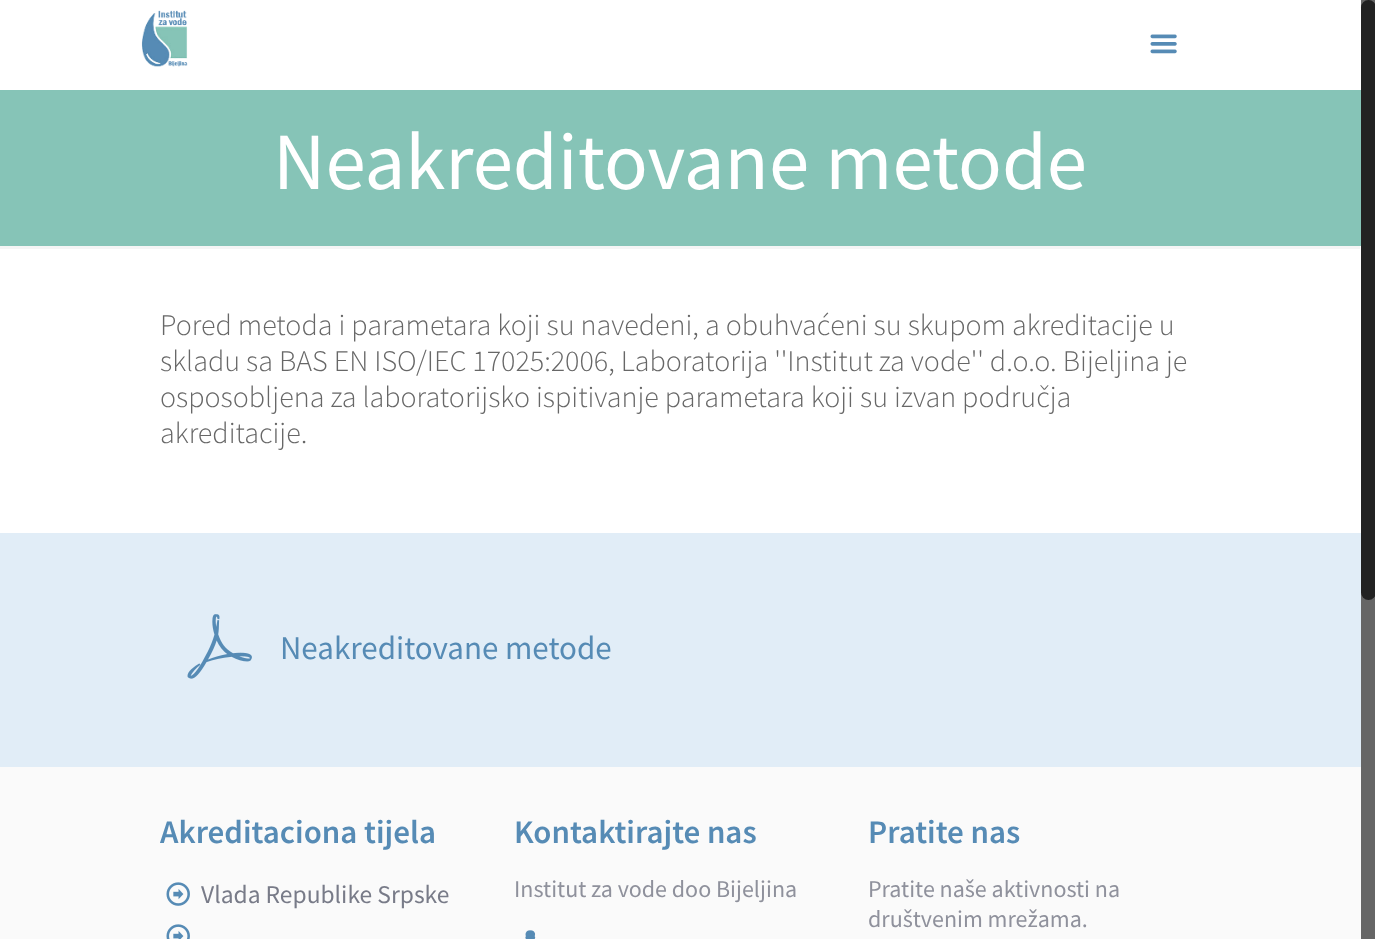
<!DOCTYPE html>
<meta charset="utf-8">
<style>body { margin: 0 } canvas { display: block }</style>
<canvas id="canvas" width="1375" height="939"></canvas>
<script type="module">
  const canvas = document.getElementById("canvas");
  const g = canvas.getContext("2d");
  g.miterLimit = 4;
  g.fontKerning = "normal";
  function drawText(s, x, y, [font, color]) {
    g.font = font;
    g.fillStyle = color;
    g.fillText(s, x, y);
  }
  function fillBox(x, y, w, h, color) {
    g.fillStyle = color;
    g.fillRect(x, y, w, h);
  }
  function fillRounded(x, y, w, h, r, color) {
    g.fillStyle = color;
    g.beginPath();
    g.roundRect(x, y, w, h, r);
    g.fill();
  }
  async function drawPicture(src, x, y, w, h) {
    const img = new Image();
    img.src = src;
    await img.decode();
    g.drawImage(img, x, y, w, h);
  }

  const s1 = ["81px Source Sans Pro", "#FFFFFF"];
  const s2 = ["300 30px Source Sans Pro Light", "#676767"];
  const s3 = ["33px Source Sans Pro", "#568BB5"];
  const s4 = ["600 33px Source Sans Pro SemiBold", "#568BB5"];
  const s5 = ["25.5px Source Sans Pro", "#787B88"];
  const s6 = ["24px Source Sans Pro", "#8F919C"];

  fillBox(0, 0, 1375, 939, "#FFFFFF");
  await drawPicture("pic1.png", 141, 10, 47, 57);
  await drawPicture("pic2.png", 1150, 34, 27, 20);
  fillBox(1361, 0, 14, 939, "#666666");
  fillRounded(1361, 0, 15, 600, 7.5, "#222222");
  fillBox(0, 90, 1361, 156, "#86C4B7");
  drawText("Neakreditovane metode", 273, 189, s1);
  fillBox(0, 246, 1360, 3, "#F5F5F5");
  drawText("Pored metoda i parametara koji su navedeni, a obuhvaćeni su skupom akreditacije u", 160, 335, s2);
  drawText("skladu sa BAS EN ISO/IEC 17025:2006, Laboratorija ''Institut za vode'' d.o.o. Bijeljina je", 160, 371, s2);
  drawText("osposobljena za laboratorijsko ispitivanje parametara koji su izvan područja", 160, 407, s2);
  drawText("akreditacije.", 160, 443, s2);
  fillBox(0, 533, 1361, 234, "#E1EDF7");
  await drawPicture("pic3.png", 187, 614, 65, 65);
  drawText("Neakreditovane metode", 280, 659, s3);
  fillBox(0, 767, 1361, 172, "#FAFAFA");
  drawText("Akreditaciona tijela", 160, 843, s4);
  await drawPicture("pic4.png", 166, 882, 24, 24);
  drawText("Vlada Republike Srpske", 201, 903, s5);
  await drawPicture("pic5.png", 166, 924, 24, 15);
  drawText("Kontaktirajte nas", 514, 843, s4);
  drawText("Institut za vode doo Bijeljina", 514, 897, s6);
  await drawPicture("pic6.png", 525, 930, 11, 9);
  drawText("Pratite nas", 868, 843, s4);
  drawText("Pratite naše aktivnosti na", 868, 897, s6);
  drawText("društvenim mrežama.", 868, 927, s6);
</script>
